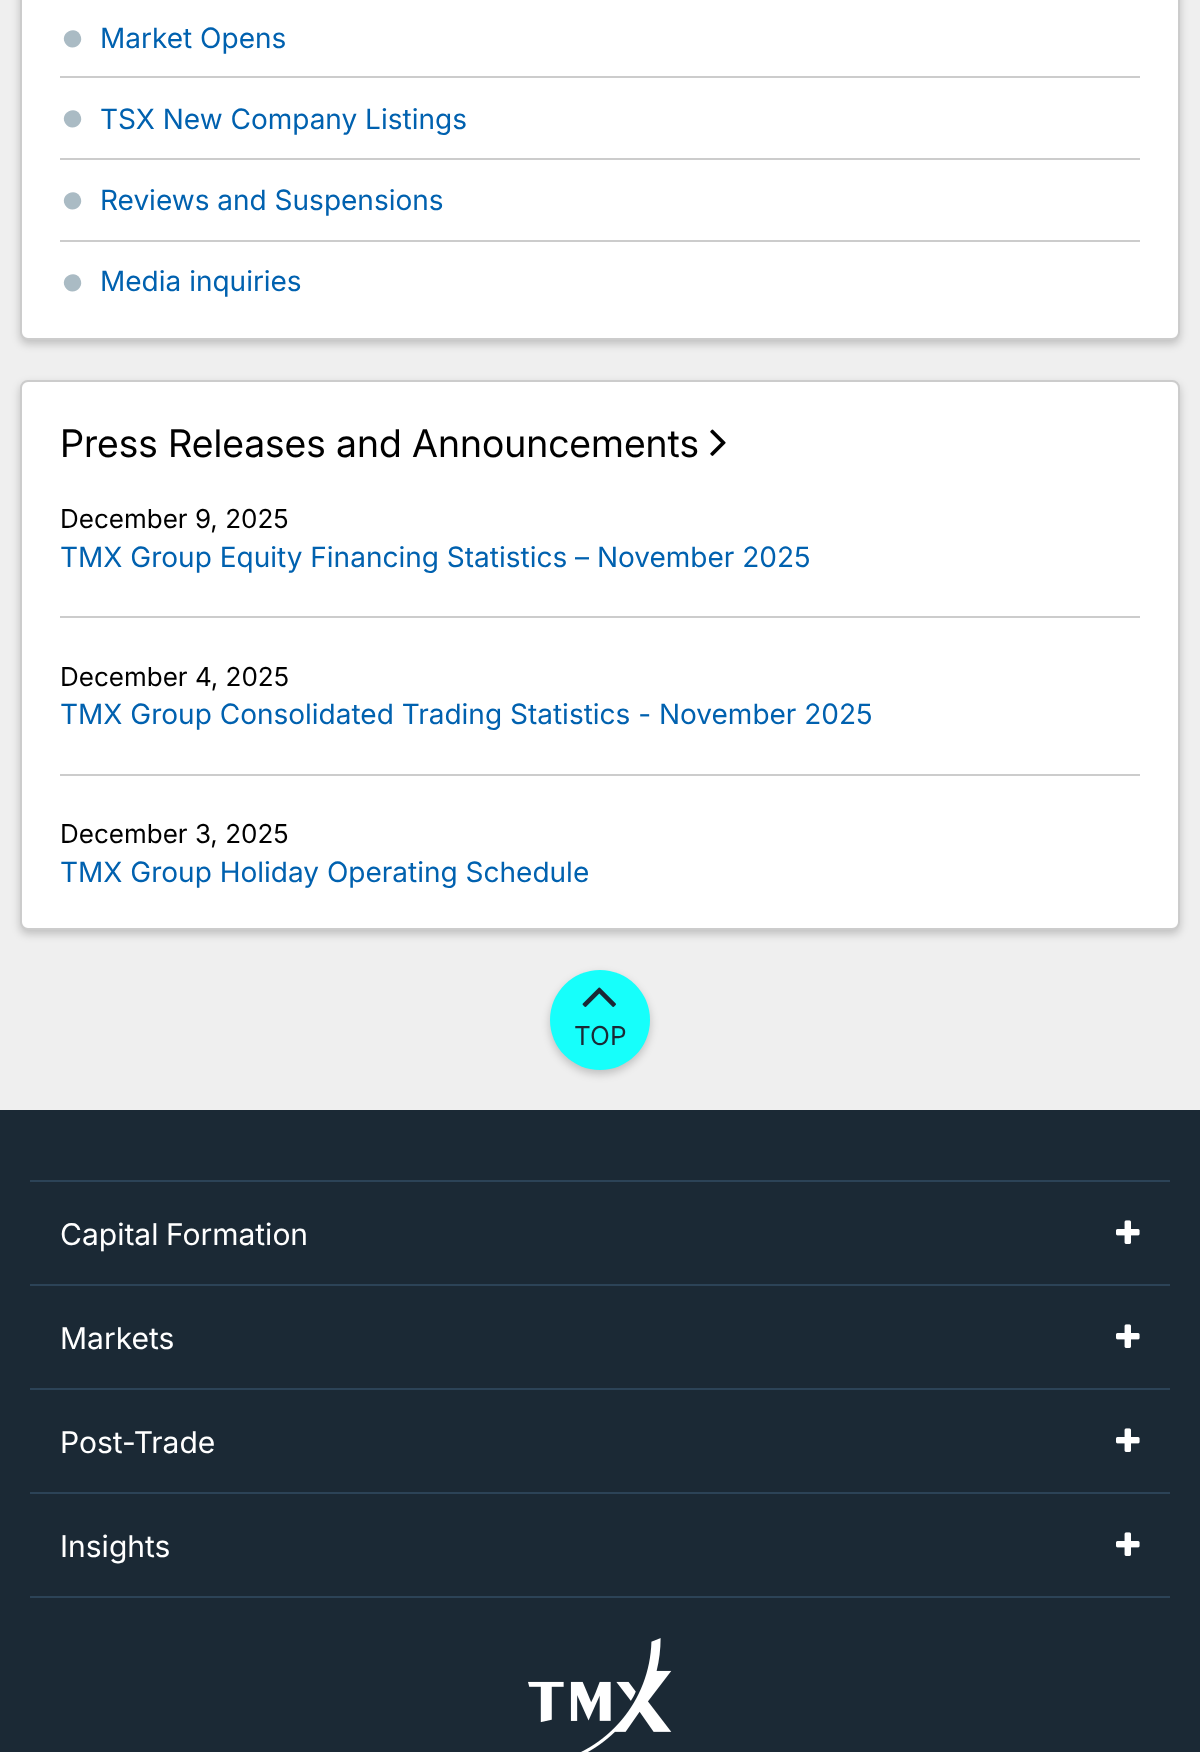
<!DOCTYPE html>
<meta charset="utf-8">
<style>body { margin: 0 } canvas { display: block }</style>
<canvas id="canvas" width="1200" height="1752"></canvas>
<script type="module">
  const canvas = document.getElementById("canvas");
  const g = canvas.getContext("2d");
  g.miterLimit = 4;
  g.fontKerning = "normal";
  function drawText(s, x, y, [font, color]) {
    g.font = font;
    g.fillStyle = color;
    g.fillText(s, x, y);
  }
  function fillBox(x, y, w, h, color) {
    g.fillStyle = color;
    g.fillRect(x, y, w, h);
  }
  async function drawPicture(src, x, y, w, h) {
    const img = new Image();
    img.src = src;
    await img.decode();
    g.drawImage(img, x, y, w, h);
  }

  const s1 = ["28px 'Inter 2'", "#0061AF"];
  const s2 = ["38px Inter", "#000000"];
  const s3 = ["26px 'Inter 2'", "#000000"];
  const s4 = ["26px 'Inter 2'", "#1B2935"];
  const s5 = ["30px 'Inter 2'", "#FFFFFF"];

  fillBox(0, 0, 1200, 1752, "#EFEFEF");
  g.fillStyle = "rgba(0, 0, 0, 0.2)";
  g.filter = "blur(4px)";
  g.beginPath();
  g.roundRect(20, -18, 1160, 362, 8);
  g.fill();
  g.filter = "none";
  g.fillStyle = "#FFFFFF";
  g.beginPath();
  g.roundRect(21, -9, 1158, 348, 7);
  g.fill();
  g.strokeStyle = "#CCCCCC";
  g.lineWidth = 2;
  g.stroke();
  fillBox(60, 76, 1080, 2, "#CCCCCC");
  g.fillStyle = "#AABBC4";
  g.beginPath();
  g.moveTo(80, 34.5);
  g.bezierCurveTo(85.5, 44.5, 71, 53, 65, 43);
  g.bezierCurveTo(59.5, 33.5, 74.5, 25, 80, 34.5);
  g.closePath();
  g.fill();
  drawText("Market Opens", 100, 48, s1);
  fillBox(60, 158, 1080, 2, "#CCCCCC");
  g.fillStyle = "#AABBC4";
  g.beginPath();
  g.moveTo(80, 114.5);
  g.bezierCurveTo(85.5, 124.5, 71, 133, 65, 123);
  g.bezierCurveTo(59.5, 113.5, 74.5, 105, 80, 114.5);
  g.closePath();
  g.fill();
  drawText("TSX New Company Listings", 100, 129, s1);
  fillBox(60, 240, 1080, 2, "#CCCCCC");
  g.fillStyle = "#AABBC4";
  g.beginPath();
  g.moveTo(80, 196.5);
  g.bezierCurveTo(85.5, 206.5, 71, 215, 65, 205);
  g.bezierCurveTo(59.5, 195.5, 74.5, 187, 80, 196.5);
  g.closePath();
  g.fill();
  drawText("Reviews and Suspensions", 100, 210, s1);
  g.fillStyle = "#AABBC4";
  g.beginPath();
  g.moveTo(80, 278.5);
  g.bezierCurveTo(85.5, 288.5, 71, 297, 65, 287);
  g.bezierCurveTo(59.5, 277.5, 74.5, 269, 80, 278.5);
  g.closePath();
  g.fill();
  drawText("Media inquiries", 100, 291, s1);
  g.fillStyle = "rgba(0, 0, 0, 0.2)";
  g.filter = "blur(4px)";
  g.beginPath();
  g.roundRect(20, 384, 1160, 550, 8);
  g.fill();
  g.filter = "none";
  g.fillStyle = "#FFFFFF";
  g.beginPath();
  g.roundRect(21, 381, 1158, 548, 7);
  g.fill();
  g.stroke();
  drawText("Press Releases and Announcements", 60, 457, s2);
  await drawPicture("pic1.png", 710, 429, 16, 27);
  fillBox(60, 616, 1080, 2, "#CCCCCC");
  drawText("December 9, 2025", 60, 528, s3);
  drawText("TMX Group Equity Financing Statistics – November 2025", 60, 567, s1);
  fillBox(60, 774, 1080, 2, "#CCCCCC");
  drawText("December 4, 2025", 60, 686, s3);
  drawText("TMX Group Consolidated Trading Statistics - November 2025", 60, 724, s1);
  drawText("December 3, 2025", 60, 843, s3);
  drawText("TMX Group Holiday Operating Schedule", 60, 882, s1);
  g.fillStyle = "rgba(0, 0, 0, 0.2)";
  g.filter = "blur(4px)";
  g.beginPath();
  g.roundRect(550, 974, 100, 100, 50);
  g.fill();
  g.filter = "none";
  g.fillStyle = "#16FFFB";
  g.beginPath();
  g.arc(600, 1020, 50, 0, Math.PI * 2);
  g.fill();
  await drawPicture("pic2.png", 582, 987, 34, 20);
  drawText("TOP", 574, 1045, s4);
  fillBox(0, 1110, 1200, 642, "#1B2935");
  fillBox(30, 1180, 1140, 2, "#2C4357");
  g.wordSpacing = "-1px";
  drawText("Capital Formation", 60, 1245, s5);
  await drawPicture("pic3.png", 1116, 1220, 24, 24);
  fillBox(30, 1284, 1140, 2, "#2C4357");
  g.wordSpacing = "0px";
  drawText("Markets", 60, 1349, s5);
  await drawPicture("pic3.png", 1116, 1324, 24, 24);
  fillBox(30, 1388, 1140, 2, "#2C4357");
  drawText("Post-Trade", 60, 1453, s5);
  await drawPicture("pic3.png", 1116, 1428, 24, 24);
  fillBox(30, 1492, 1140, 2, "#2C4357");
  fillBox(30, 1596, 1140, 2, "#2C4357");
  drawText("Insights", 60, 1557, s5);
  await drawPicture("pic3.png", 1116, 1532, 24, 24);
  await drawPicture("pic4.png", 528, 1638, 144, 114);
</script>
